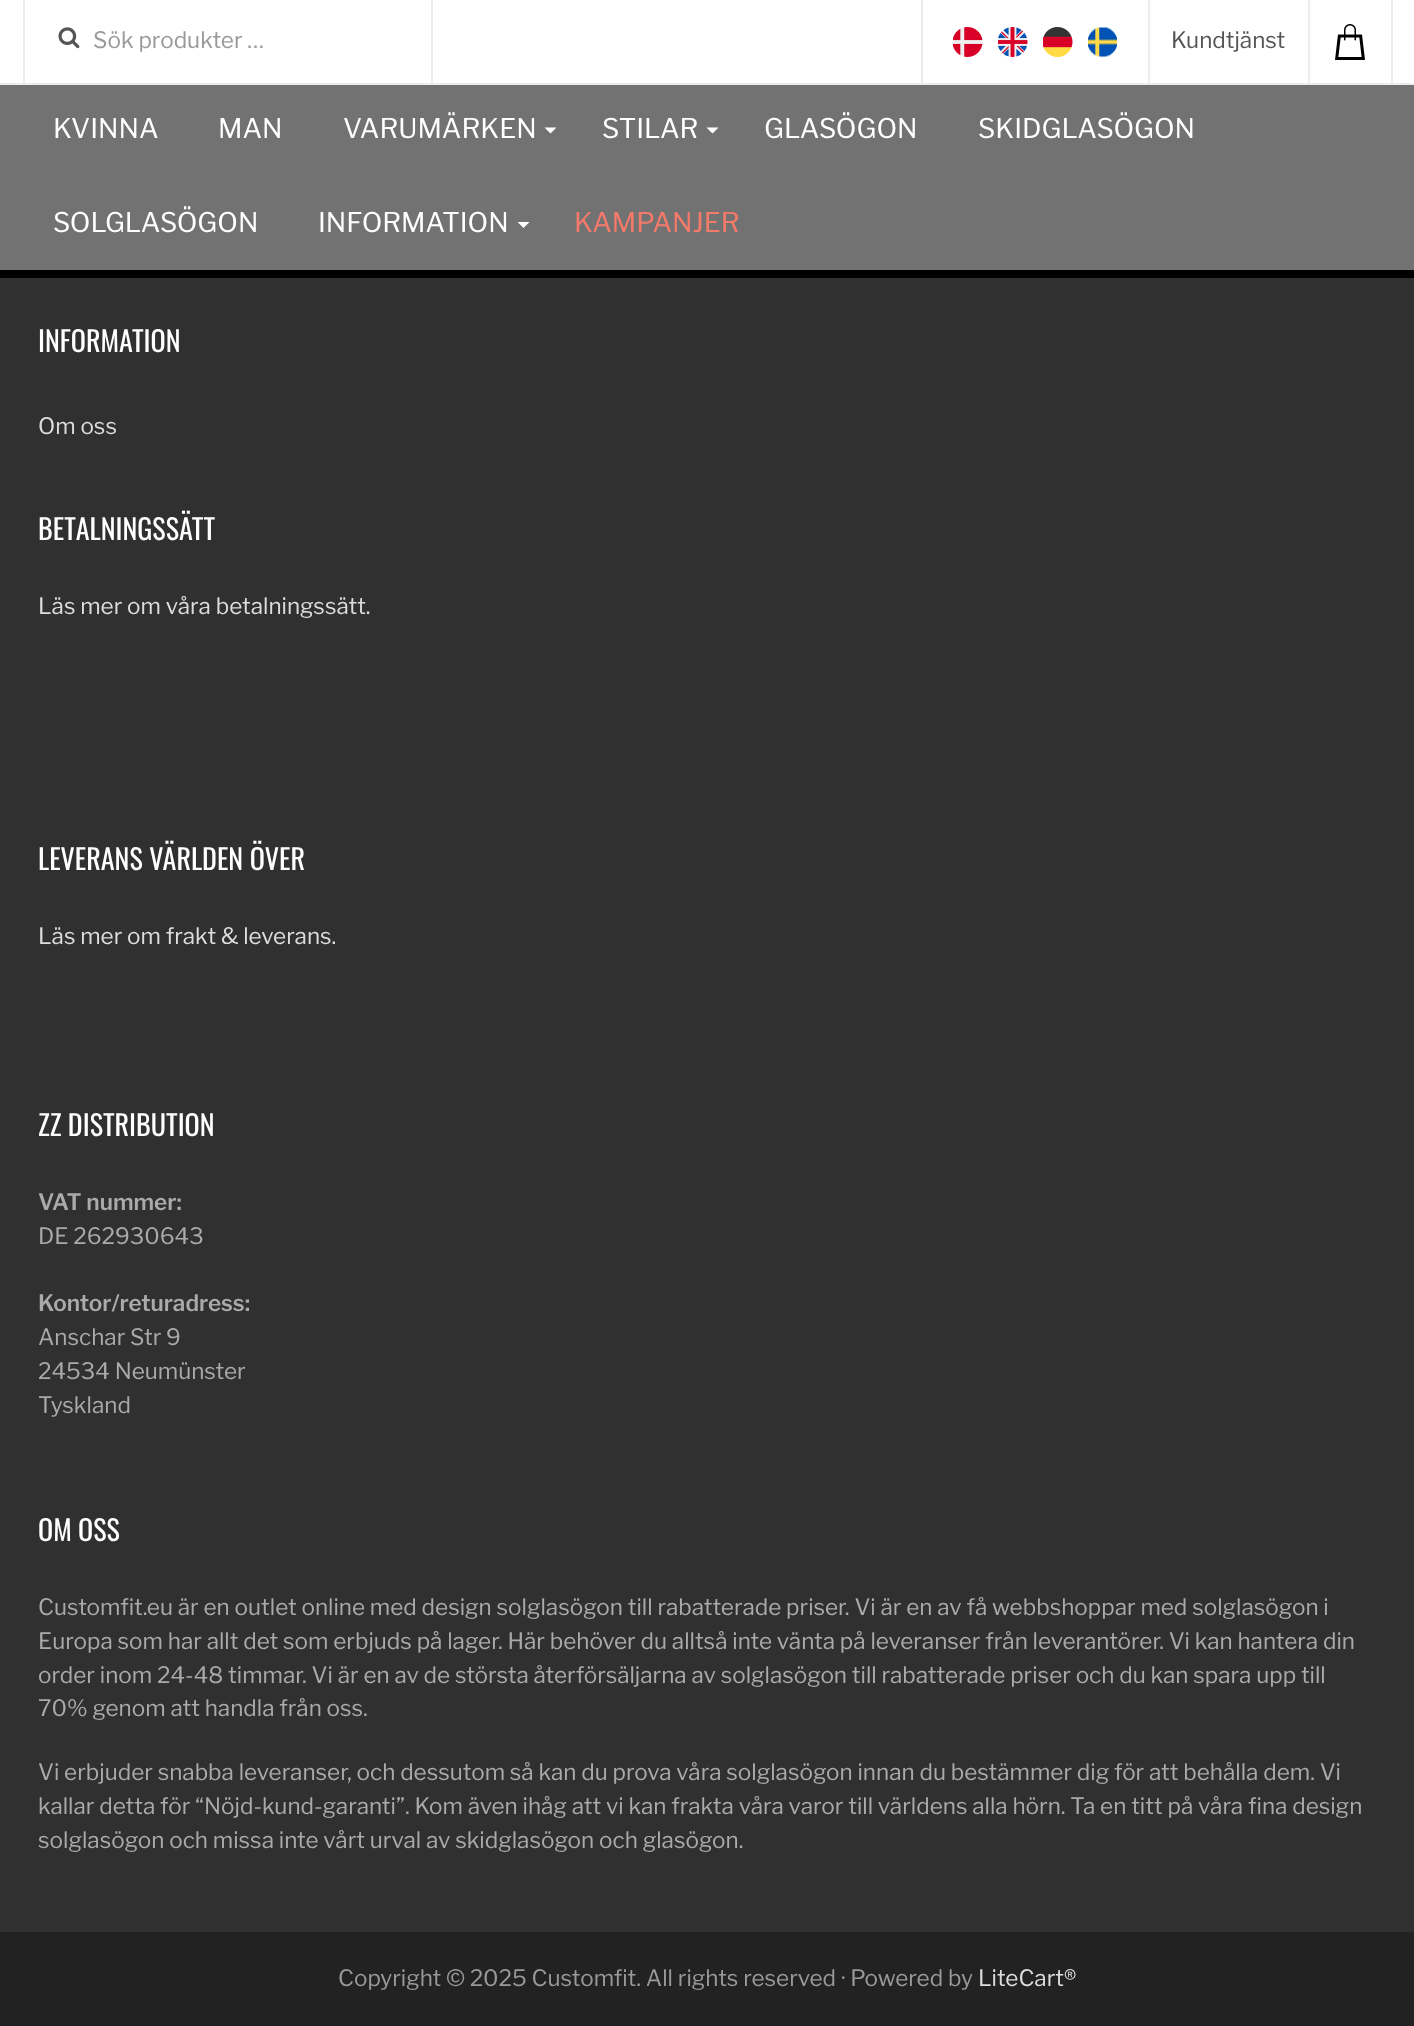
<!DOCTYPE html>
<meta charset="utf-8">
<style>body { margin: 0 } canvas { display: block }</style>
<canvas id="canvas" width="1414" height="2026"></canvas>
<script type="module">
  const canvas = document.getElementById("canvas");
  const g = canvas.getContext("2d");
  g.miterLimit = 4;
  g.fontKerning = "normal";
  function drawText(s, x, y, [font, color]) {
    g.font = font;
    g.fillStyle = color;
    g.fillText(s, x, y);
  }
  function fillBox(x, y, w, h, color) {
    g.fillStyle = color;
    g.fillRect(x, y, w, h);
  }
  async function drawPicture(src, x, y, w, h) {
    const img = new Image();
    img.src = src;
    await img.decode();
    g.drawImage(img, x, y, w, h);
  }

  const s1 = ["100 22.5px Libre Franklin", "#999999"];
  const s2 = ["100 22.5px Libre Franklin", "#555555"];
  const s3 = ["100 27px Libre Franklin", "#FFFFFF"];
  const s4 = ["100 27px Libre Franklin", "#F67A6A"];
  const s5 = ["28.1px Oswald", "#FFFFFF"];
  const s6 = ["100 22.5px Libre Franklin", "#DDDDDD"];
  const s7 = ["600 22.5px Libre Franklin", "#AAAAAA"];
  const s8 = ["100 22.5px Libre Franklin", "#AAAAAA"];

  fillBox(0, 0, 1414, 2026, "#303030");
  fillBox(0, 0, 1414, 83, "#FFFFFF");
  fillBox(0, 83, 1414, 2, "#ECECEC");
  fillBox(23, 0, 2, 83, "#ECECEC");
  fillBox(431, 0, 2, 83, "#ECECEC");
  await drawPicture("pic1.png", 58, 27, 22, 22);
  drawText("Sök produkter …", 93, 48, s1);
  fillBox(921, 0, 2, 83, "#ECECEC");
  fillBox(1148, 0, 2, 83, "#ECECEC");
  await drawPicture("pic2.png", 953, 27, 30, 30);
  await drawPicture("pic3.png", 998, 27, 30, 30);
  await drawPicture("pic4.png", 1043, 27, 30, 30);
  await drawPicture("pic5.png", 1088, 27, 30, 31);
  fillBox(1308, 0, 2, 83, "#ECECEC");
  drawText("Kundtjänst", 1171, 48, s2);
  fillBox(1391, 0, 2, 83, "#ECECEC");
  await drawPicture("pic6.png", 1335, 24, 30, 36);
  fillBox(0, 85, 1414, 185, "#727272");
  fillBox(0, 270, 1414, 8, "#000000");
  drawText("KVINNA", 53, 138, s3);
  drawText("MAN", 218, 138, s3);
  drawText("VARUMÄRKEN", 343, 138, s3);
  g.beginPath();
  g.moveTo(544.5, 127.5);
  g.lineTo(556.5, 127.5);
  g.lineTo(550.5, 133.5);
  g.closePath();
  g.fill();
  drawText("STILAR", 602, 138, s3);
  g.beginPath();
  g.moveTo(706.5, 127.5);
  g.lineTo(718.5, 127.5);
  g.lineTo(712.5, 133.5);
  g.closePath();
  g.fill();
  drawText("GLASÖGON", 764, 138, s3);
  drawText("SKIDGLASÖGON", 978, 138, s3);
  drawText("SOLGLASÖGON", 53, 232, s3);
  drawText("INFORMATION", 318, 232, s3);
  g.beginPath();
  g.moveTo(517.5, 222);
  g.lineTo(529.5, 222);
  g.lineTo(523.5, 228);
  g.closePath();
  g.fill();
  drawText("KAMPANJER", 574, 232, s4);
  drawText("INFORMATION", 38, 352, s5);
  drawText("Om oss", 38, 434, s6);
  drawText("BETALNINGSSÄTT", 38, 540, s5);
  drawText("Läs mer om våra betalningssätt.", 38, 614, s6);
  drawText("LEVERANS VÄRLDEN ÖVER", 38, 870, s5);
  drawText("Läs mer om frakt & leverans.", 38, 944, s6);
  drawText("ZZ DISTRIBUTION", 38, 1136, s5);
  drawText("VAT nummer:", 38, 1210, s7);
  drawText("DE 262930643", 38, 1244, s8);
  drawText("Kontor/returadress:", 38, 1311, s7);
  drawText("Anschar Str 9", 38, 1345, s8);
  drawText("24534 Neumünster", 38, 1379, s8);
  drawText("Tyskland", 38, 1413, s8);
  drawText("OM OSS", 38, 1541, s5);
  drawText("Customfit.eu är en outlet online med design solglasögon till rabatterade priser. Vi är en av få webbshoppar med solglasögon i", 38, 1615, s8);
  drawText("Europa som har allt det som erbjuds på lager. Här behöver du alltså inte vänta på leveranser från leverantörer. Vi kan hantera din", 38, 1649, s8);
  drawText("order inom 24-48 timmar. Vi är en av de största återförsäljarna av solglasögon till rabatterade priser och du kan spara upp till", 38, 1683, s8);
  drawText("70% genom att handla från oss.", 38, 1716, s8);
  drawText("Vi erbjuder snabba leveranser, och dessutom så kan du prova våra solglasögon innan du bestämmer dig för att behålla dem. Vi", 38, 1780, s8);
  drawText("kallar detta för “Nöjd-kund-garanti”. Kom även ihåg att vi kan frakta våra varor till världens alla hörn. Ta en titt på våra fina design", 38, 1814, s8);
  drawText("solglasögon och missa inte vårt urval av skidglasögon och glasögon.", 38, 1848, s8);
  fillBox(0, 1932, 1414, 94, "#222222");
  drawText("Copyright © 2025 Customfit. All rights reserved · Powered by", 338, 1986, s1);
  drawText("LiteCart®", 978, 1986, s6);
</script>
